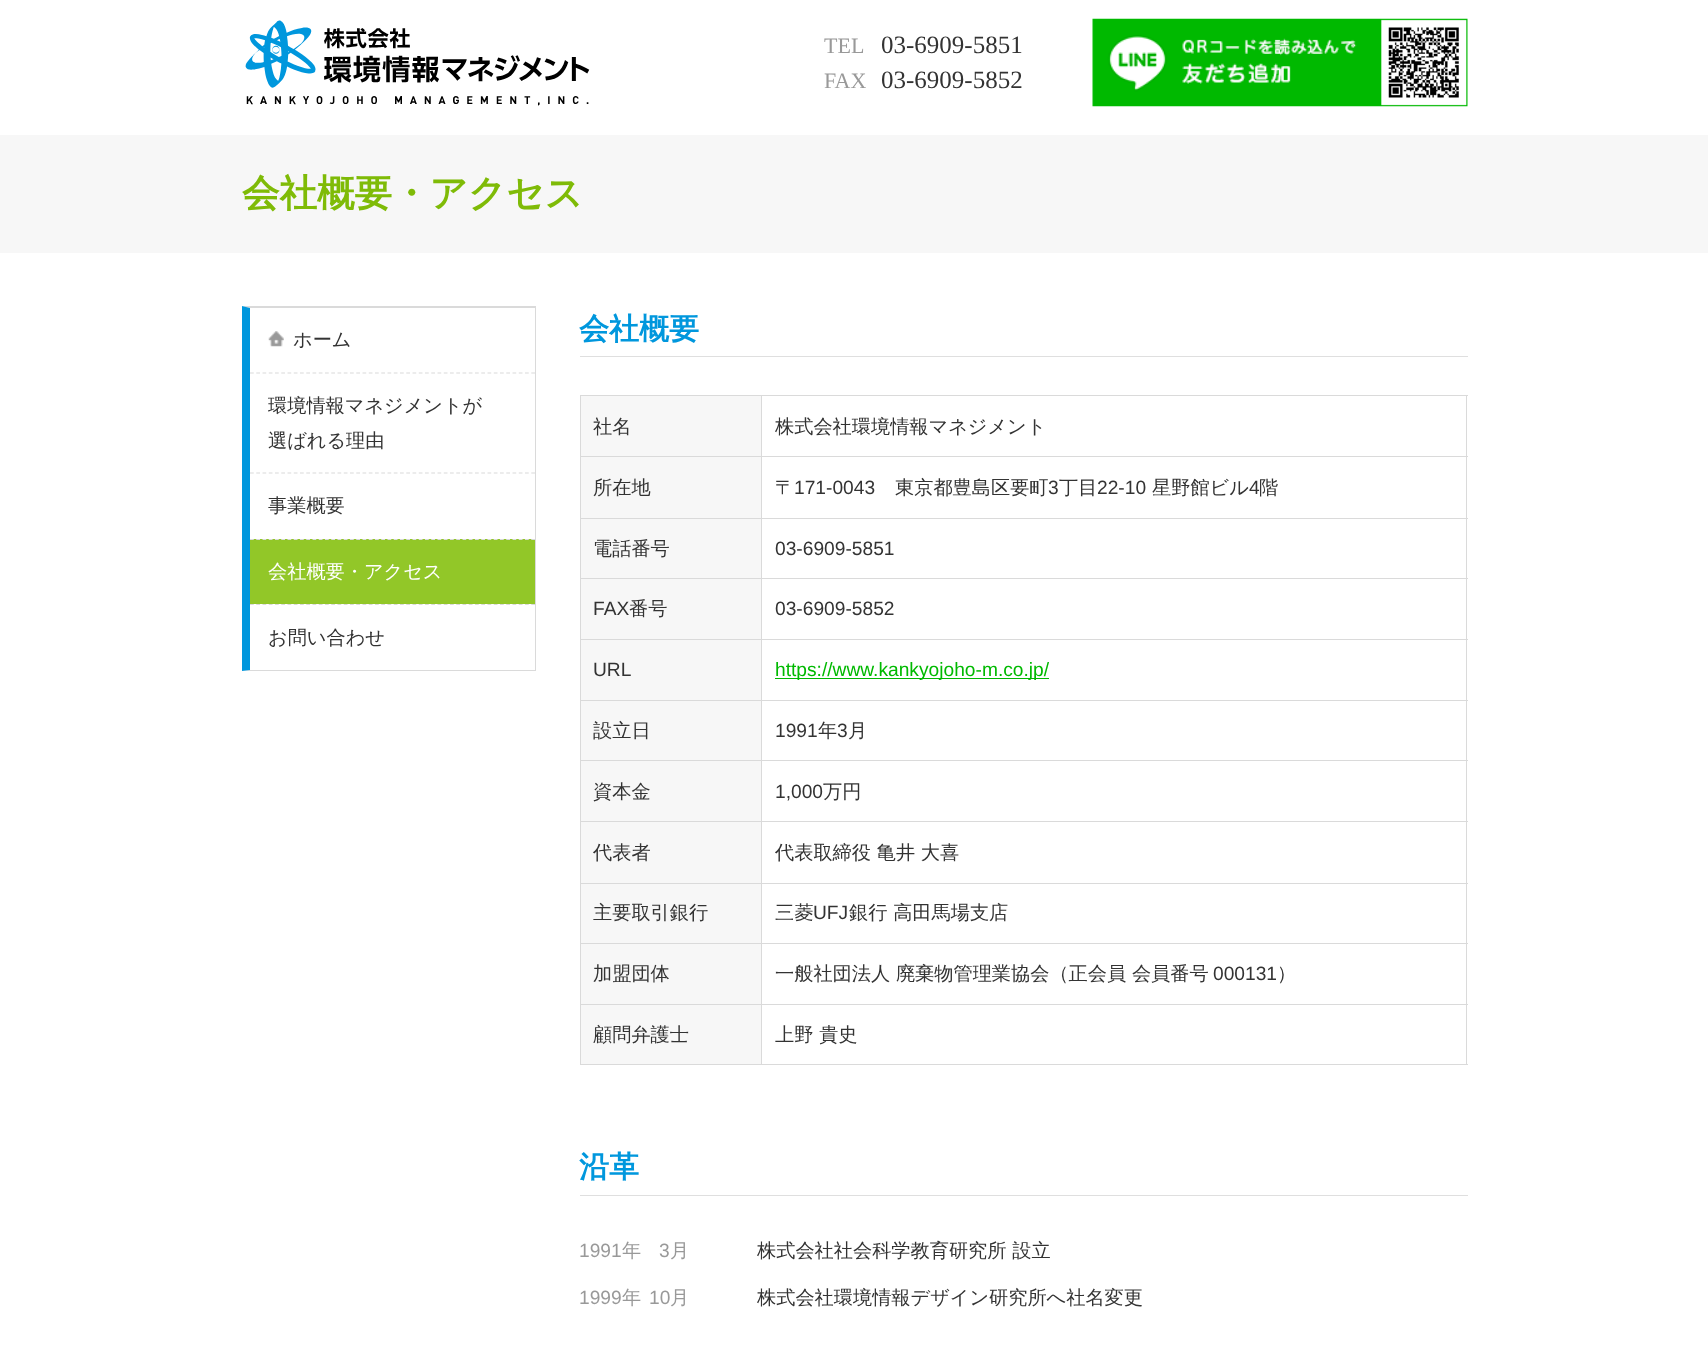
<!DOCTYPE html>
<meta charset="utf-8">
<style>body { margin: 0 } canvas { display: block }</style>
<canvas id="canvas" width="1708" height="1345"></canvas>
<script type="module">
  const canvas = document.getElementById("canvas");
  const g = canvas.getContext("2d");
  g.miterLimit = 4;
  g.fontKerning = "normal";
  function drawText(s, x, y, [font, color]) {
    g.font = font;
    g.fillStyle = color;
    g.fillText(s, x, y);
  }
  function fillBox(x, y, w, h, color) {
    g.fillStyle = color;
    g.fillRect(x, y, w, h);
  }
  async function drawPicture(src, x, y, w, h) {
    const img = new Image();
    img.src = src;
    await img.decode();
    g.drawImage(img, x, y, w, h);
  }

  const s1 = ["22px Liberation Serif", "#999999"];
  const s2 = ["25px Liberation Serif", "#333333"];
  const s3 = ["500 19.2px WenQuanYi Zen Hei", "#333333"];
  const s4 = ["500 19.2px WenQuanYi Zen Hei", "#FFFFFF"];
  const s5 = ["bold 37.5px WenQuanYi Zen Hei", "#7FBB07"];
  const s6 = ["bold 30px WenQuanYi Zen Hei", "#0097DD"];
  const s7 = ["19.2px Liberation Sans", "#333333"];
  const s8 = ["19.2px Liberation Sans", "#00B900"];
  const s9 = ["19.2px Liberation Sans", "#999999"];
  const s10 = ["500 19.2px WenQuanYi Zen Hei", "#999999"];

  fillBox(0, 0, 1708, 1345, "#FFFFFF");
  await drawPicture("pic1.png", 245, 20, 345, 86);
  drawText("TEL", 824, 53, s1);
  drawText("03-6909-5851", 881, 53, s2);
  drawText("FAX", 824, 88, s1);
  drawText("03-6909-5852", 881, 88, s2);
  await drawPicture("pic2.png", 1092, 18, 376, 89);
  g.fillStyle = "#DADADA";
  g.beginPath();
  g.moveTo(242, 306);
  g.lineTo(536, 306);
  g.lineTo(535, 308);
  g.lineTo(250, 308);
  g.closePath();
  g.fill();
  fillBox(535, 306, 1, 365, "#DADADA");
  g.beginPath();
  g.moveTo(536, 671);
  g.lineTo(242, 671);
  g.lineTo(250, 670);
  g.lineTo(535, 670);
  g.closePath();
  g.fill();
  g.fillStyle = "#0097DD";
  g.beginPath();
  g.moveTo(242, 671);
  g.lineTo(242, 306);
  g.lineTo(250, 308);
  g.lineTo(250, 670);
  g.closePath();
  g.fill();
  await drawPicture("pic3.png", 268, 331, 16, 16);
  drawText("ホーム", 293, 346, s3);
  g.beginPath();
  g.moveTo(250, 373);
  g.lineTo(535, 373);
  g.strokeStyle = "#DADADA";
  g.lineWidth = 1.2;
  g.setLineDash([3.75, 2.5]);
  g.stroke();
  drawText("環境情報マネジメントが", 268, 412, s3);
  drawText("選ばれる理由", 268, 447, s3);
  g.beginPath();
  g.moveTo(250, 473);
  g.lineTo(535, 473);
  g.stroke();
  drawText("事業概要", 268, 512, s3);
  fillBox(250, 539, 285, 65, "#92C728");
  g.beginPath();
  g.moveTo(250, 539.5);
  g.lineTo(535, 539.5);
  g.stroke();
  drawText("会社概要・アクセス", 268, 578, s4);
  g.beginPath();
  g.moveTo(250, 604.5);
  g.lineTo(535, 604.5);
  g.stroke();
  drawText("お問い合わせ", 268, 644, s3);
  fillBox(0, 135, 1708, 118, "#F7F7F7");
  drawText("会社概要・アクセス", 242, 206, s5);
  fillBox(580, 356, 888, 1, "#DFDFDF");
  drawText("会社概要", 579, 339, s6);
  fillBox(581, 396, 180, 122, "#F7F7F7");
  fillBox(761, 395, 707, 1, "#DADADA");
  fillBox(761, 456, 707, 1, "#DADADA");
  fillBox(761, 518, 707, 1, "#DADADA");
  fillBox(761, 578, 707, 1, "#DADADA");
  fillBox(761, 639, 707, 1, "#DADADA");
  fillBox(761, 700, 707, 1, "#DADADA");
  fillBox(761, 760, 707, 1, "#DADADA");
  fillBox(761, 821, 707, 1, "#DADADA");
  fillBox(761, 883, 707, 1, "#DADADA");
  fillBox(761, 943, 707, 1, "#DADADA");
  fillBox(761, 1004, 707, 1, "#DADADA");
  fillBox(1466, 1004, 1, 61, "#DADADA");
  fillBox(761, 1064, 707, 1, "#DADADA");
  fillBox(761, 1004, 1, 61, "#DADADA");
  fillBox(580, 1004, 183, 1, "#DADADA");
  fillBox(761, 943, 1, 62, "#DADADA");
  fillBox(580, 943, 183, 1, "#DADADA");
  fillBox(761, 883, 1, 61, "#DADADA");
  fillBox(580, 883, 183, 1, "#DADADA");
  fillBox(761, 821, 1, 63, "#DADADA");
  fillBox(580, 821, 183, 1, "#DADADA");
  fillBox(761, 760, 1, 63, "#DADADA");
  fillBox(580, 760, 183, 1, "#DADADA");
  fillBox(761, 700, 1, 61, "#DADADA");
  fillBox(580, 700, 183, 1, "#DADADA");
  fillBox(761, 639, 1, 62, "#DADADA");
  fillBox(580, 639, 183, 1, "#DADADA");
  fillBox(761, 578, 1, 62, "#DADADA");
  fillBox(580, 578, 183, 1, "#DADADA");
  fillBox(761, 518, 1, 61, "#DADADA");
  fillBox(580, 518, 183, 1, "#DADADA");
  fillBox(761, 456, 1, 63, "#DADADA");
  fillBox(580, 456, 183, 1, "#DADADA");
  fillBox(761, 395, 1, 63, "#DADADA");
  fillBox(580, 395, 183, 1, "#DADADA");
  fillBox(580, 1064, 183, 1, "#DADADA");
  fillBox(580, 1004, 1, 61, "#DADADA");
  fillBox(580, 943, 1, 62, "#DADADA");
  fillBox(580, 883, 1, 61, "#DADADA");
  fillBox(580, 821, 1, 63, "#DADADA");
  fillBox(580, 760, 1, 63, "#DADADA");
  fillBox(580, 700, 1, 61, "#DADADA");
  fillBox(580, 639, 1, 62, "#DADADA");
  fillBox(580, 578, 1, 62, "#DADADA");
  fillBox(580, 518, 1, 61, "#DADADA");
  fillBox(580, 456, 1, 63, "#DADADA");
  fillBox(580, 395, 1, 63, "#DADADA");
  drawText("社名", 593, 433, s3);
  fillBox(1466, 943, 1, 62, "#DADADA");
  fillBox(1466, 883, 1, 61, "#DADADA");
  fillBox(1466, 821, 1, 63, "#DADADA");
  fillBox(1466, 760, 1, 63, "#DADADA");
  fillBox(1466, 700, 1, 61, "#DADADA");
  fillBox(1466, 639, 1, 62, "#DADADA");
  fillBox(1466, 578, 1, 62, "#DADADA");
  fillBox(1466, 518, 1, 61, "#DADADA");
  fillBox(1466, 456, 1, 63, "#DADADA");
  fillBox(1466, 395, 1, 63, "#DADADA");
  drawText("株式会社環境情報マネジメント", 775, 433, s3);
  drawText("所在地", 593, 494, s3);
  drawText("〒", 775, 494, s3);
  drawText("171-0043", 794, 494, s7);
  drawText("東京都豊島区要町", 895, 494, s3);
  drawText("3", 1048, 494, s7);
  drawText("丁目", 1059, 494, s3);
  drawText("22-10", 1097, 494, s7);
  drawText("星野館ビル", 1152, 494, s3);
  drawText("4", 1249, 494, s7);
  drawText("階", 1259, 494, s3);
  fillBox(581, 519, 180, 59, "#F7F7F7");
  drawText("電話番号", 593, 555, s3);
  drawText("03-6909-5851", 775, 555, s7);
  fillBox(581, 579, 180, 60, "#F7F7F7");
  drawText("FAX", 593, 615, s7);
  drawText("番号", 629, 615, s3);
  drawText("03-6909-5852", 775, 615, s7);
  fillBox(581, 640, 180, 60, "#F7F7F7");
  drawText("URL", 593, 676, s7);
  fillBox(775, 678, 274, 1, "#00B900");
  drawText("https://www.kankyojoho-m.co.jp/", 775, 676, s8);
  fillBox(581, 701, 180, 59, "#F7F7F7");
  drawText("設立日", 593, 737, s3);
  drawText("1991", 775, 737, s7);
  drawText("年", 818, 737, s3);
  drawText("3", 837, 737, s7);
  drawText("月", 848, 737, s3);
  fillBox(581, 761, 180, 60, "#F7F7F7");
  drawText("資本金", 593, 798, s3);
  drawText("1,000", 775, 798, s7);
  drawText("万円", 823, 798, s3);
  fillBox(581, 822, 180, 61, "#F7F7F7");
  drawText("代表者", 593, 859, s3);
  drawText("代表取締役 亀井 大喜", 775, 859, s3);
  fillBox(581, 884, 180, 59, "#F7F7F7");
  drawText("主要取引銀行", 593, 919, s3);
  drawText("三菱", 775, 919, s3);
  drawText("UFJ", 813, 919, s7);
  drawText("銀行 高田馬場支店", 849, 919, s3);
  fillBox(581, 944, 180, 60, "#F7F7F7");
  drawText("加盟団体", 593, 980, s3);
  drawText("一般社団法人 廃棄物管理業協会（正会員 会員番号", 775, 980, s3);
  drawText("000131", 1213, 980, s7);
  drawText("）", 1277, 980, s3);
  fillBox(581, 1005, 180, 59, "#F7F7F7");
  drawText("顧問弁護士", 593, 1041, s3);
  drawText("上野 貴史", 775, 1041, s3);
  fillBox(580, 1195, 888, 1, "#DFDFDF");
  drawText("沿革", 579, 1177, s6);
  drawText("1991", 579, 1257, s9);
  drawText("年", 622, 1257, s10);
  drawText("3", 659, 1257, s9);
  drawText("月", 670, 1257, s10);
  drawText("株式会社社会科学教育研究所 設立", 757, 1257, s3);
  drawText("1999", 579, 1304, s9);
  drawText("年", 622, 1304, s10);
  drawText("10", 649, 1304, s9);
  drawText("月", 670, 1304, s10);
  drawText("株式会社環境情報デザイン研究所へ社名変更", 757, 1304, s3);
</script>
